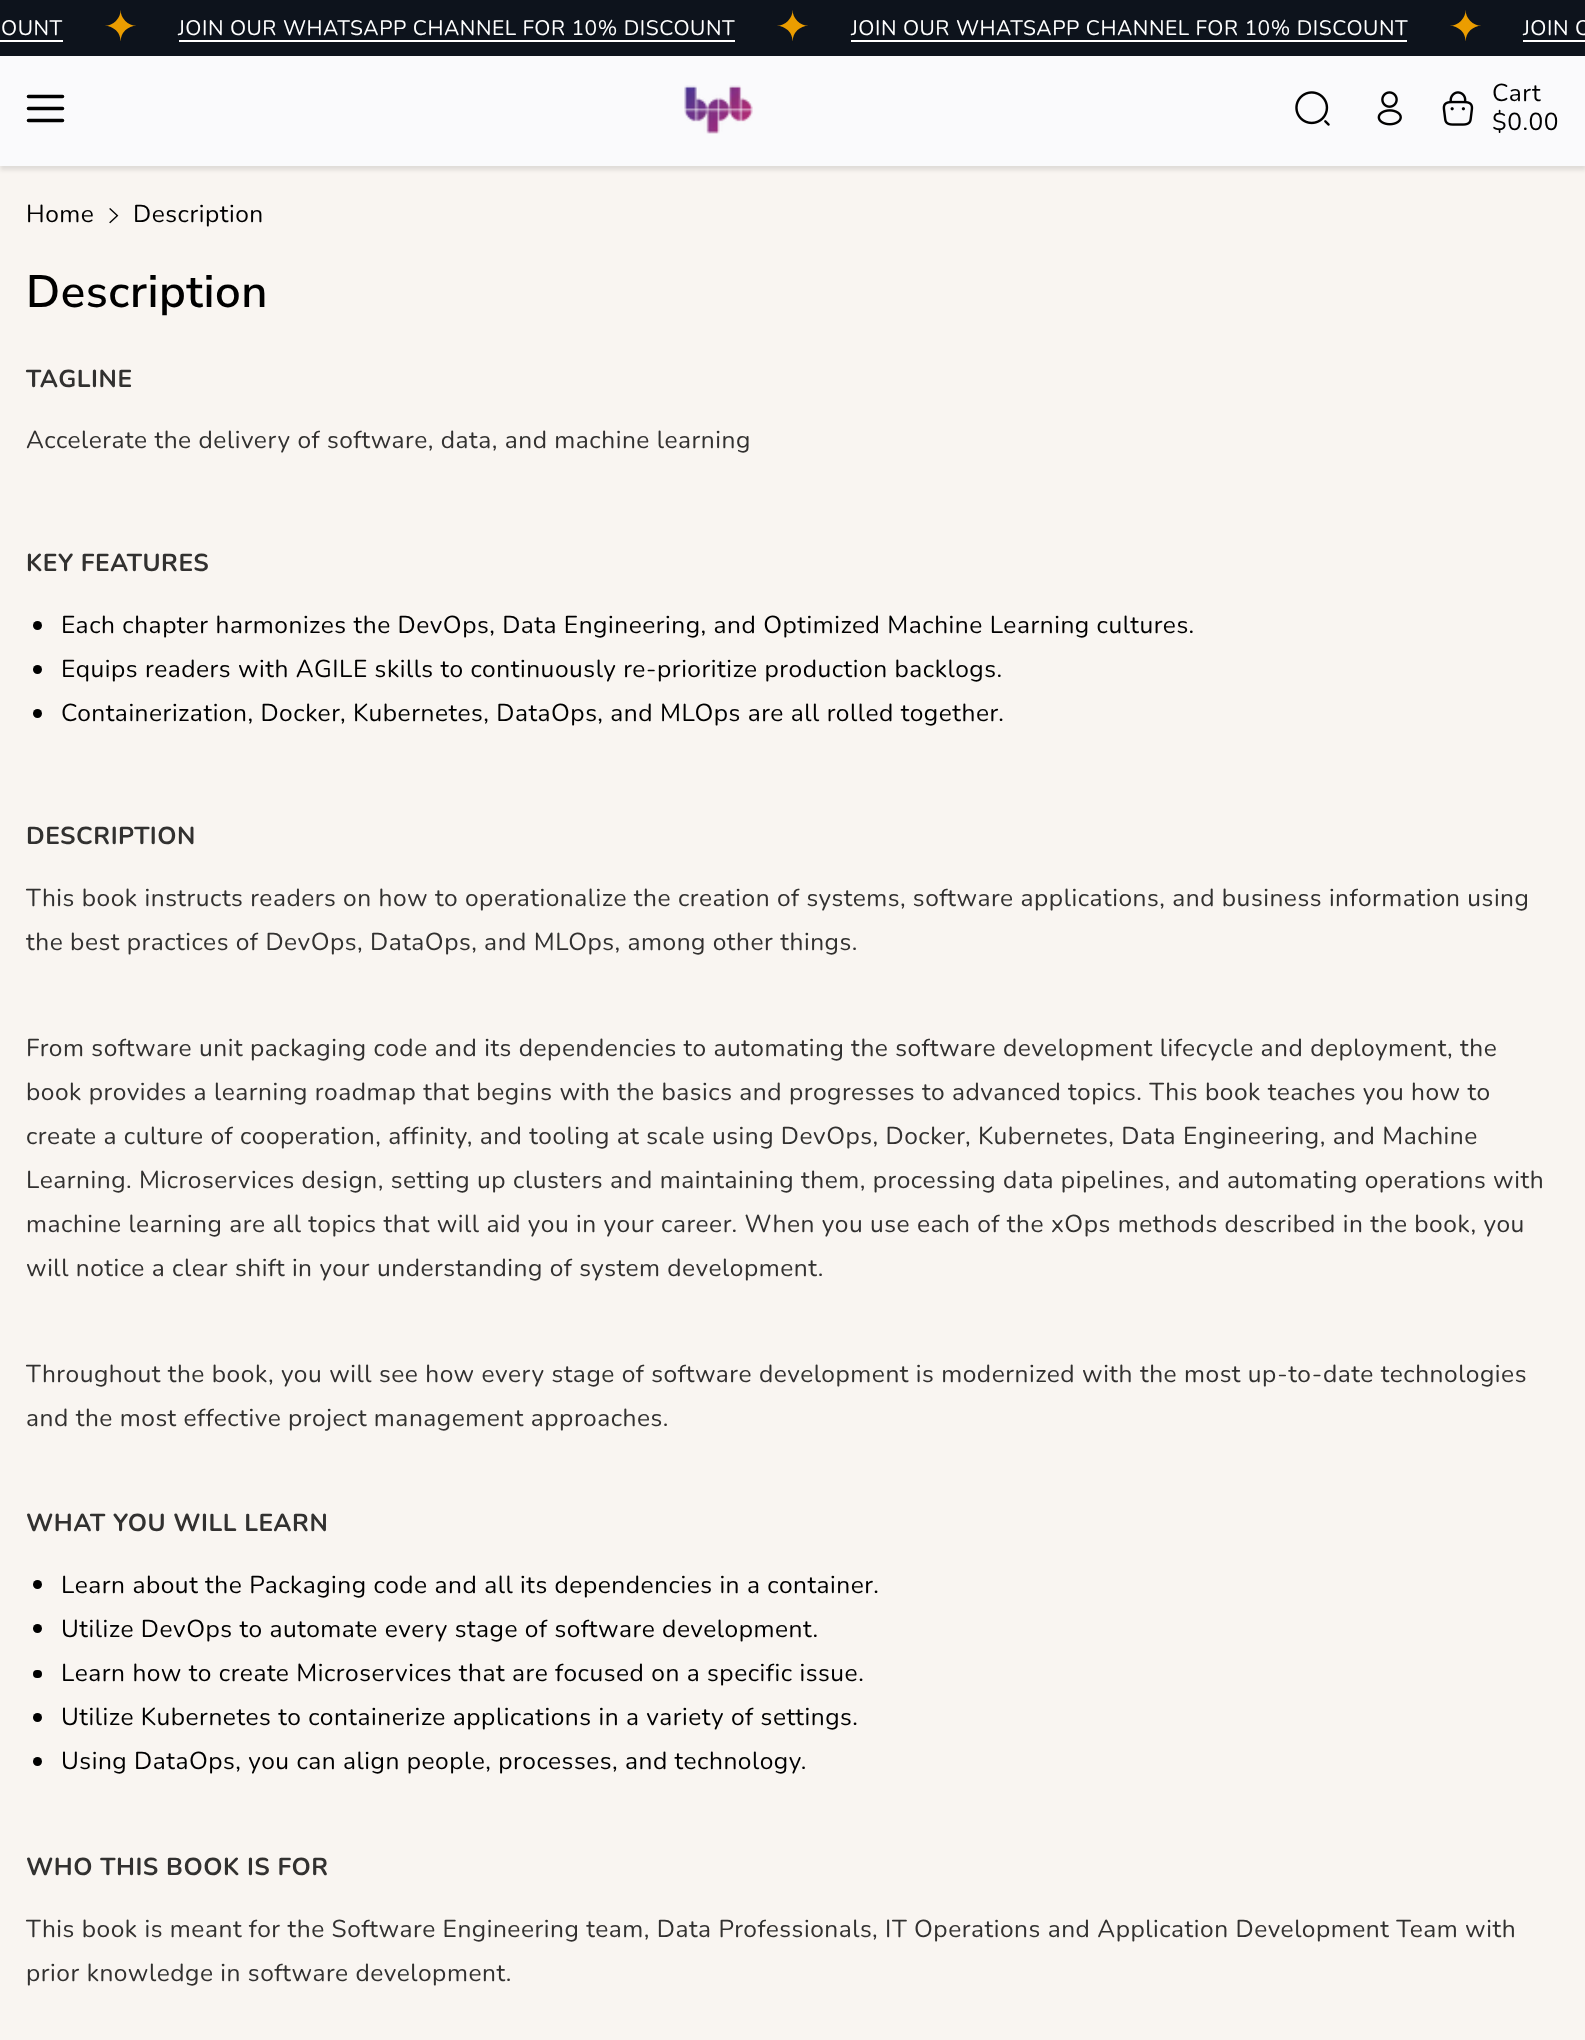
<!DOCTYPE html>
<meta charset="utf-8">
<style>body { margin: 0 } canvas { display: block }</style>
<canvas id="canvas" width="1585" height="2040"></canvas>
<script type="module">
  const canvas = document.getElementById("canvas");
  const g = canvas.getContext("2d");
  g.miterLimit = 4;
  g.fontKerning = "normal";
  function drawText(s, x, y, [font, color]) {
    g.font = font;
    g.fillStyle = color;
    g.fillText(s, x, y);
  }
  function fillBox(x, y, w, h, color) {
    g.fillStyle = color;
    g.fillRect(x, y, w, h);
  }
  function fillRounded(x, y, w, h, r, color) {
    g.fillStyle = color;
    g.beginPath();
    g.roundRect(x, y, w, h, r);
    g.fill();
  }
  async function drawPicture(src, x, y, w, h) {
    const img = new Image();
    img.src = src;
    await img.decode();
    g.drawImage(img, x, y, w, h);
  }

  const s1 = ["21px Nunito", "#FFFFFF"];
  const s2 = ["42px DejaVu Sans", "#EB9D00"];
  const s3 = ["24.5px Nunito", "#000000"];
  const s4 = ["600 45.5px Nunito Sans", "#000000"];
  const s5 = ["bold 24.5px Nunito", "#323130"];
  const s6 = ["24.5px Nunito", "#323130"];

  fillBox(0, 0, 1585, 2040, "#F9F5F1");
  fillBox(0, 0, 1585, 56, "#0D131C");
  g.letterSpacing = "0.53px";
  drawText("OUNT", 1, 35, s1);
  fillBox(0, 40, 63, 2, "#FFFFFF");
  drawText("✦", 103, 41, s2);
  drawText("JOIN OUR WHATSAPP CHANNEL FOR 10% DISCOUNT", 178, 35, s1);
  fillBox(179, 40, 556, 2, "#FFFFFF");
  drawText("✦", 775, 41, s2);
  drawText("JOIN OUR WHATSAPP CHANNEL FOR 10% DISCOUNT", 851, 35, s1);
  fillBox(851, 40, 556, 2, "#FFFFFF");
  drawText("✦", 1448, 41, s2);
  drawText("JOIN O", 1523, 35, s1);
  fillBox(1523, 40, 62, 2, "#FFFFFF");
  g.fillStyle = "rgba(0, 0, 0, 0.1)";
  g.filter = "blur(2px)";
  g.beginPath();
  g.rect(0, 60, 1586, 110);
  g.fill();
  g.filter = "none";
  fillBox(0, 56, 1585, 110, "#FAFAFC");
  g.beginPath();
  g.moveTo(28.5, 120.5);
  g.lineTo(62.5, 120.5);
  g.moveTo(28.5, 108.5);
  g.lineTo(62.5, 108.5);
  g.moveTo(28.5, 96.5);
  g.lineTo(62.5, 96.5);
  g.strokeStyle = "#000000";
  g.lineWidth = 3.6;
  g.lineCap = "round";
  g.lineJoin = "round";
  g.stroke();
  await drawPicture("pic1.png", 684, 85, 69, 49);
  await drawPicture("pic2.png", 1295, 91, 35, 35);
  await drawPicture("pic3.png", 1377, 91, 25, 35);
  await drawPicture("pic4.png", 1442, 91, 32, 35);
  drawText("Cart", 1492, 101, s3);
  drawText("$0.00", 1492, 130, s3);
  drawText("Home", 26, 222, s3);
  await drawPicture("pic5.png", 109, 208, 10, 16);
  drawText("Description", 133, 222, s3);
  drawText("Description", 26, 307, s4);
  drawText("TAGLINE", 26, 387, s5);
  drawText("Accelerate the delivery of software, data, and machine learning", 26, 448, s6);
  drawText("KEY FEATURES", 26, 571, s5);
  g.fillStyle = "#000000";
  g.beginPath();
  g.arc(37.5, 625.5, 4.5, 0, Math.PI * 2);
  g.fill();
  drawText("Each chapter harmonizes the DevOps, Data Engineering, and Optimized Machine Learning cultures.", 61, 633, s3);
  g.beginPath();
  g.arc(37.5, 669.5, 4.5, 0, Math.PI * 2);
  g.fill();
  drawText("Equips readers with AGILE skills to continuously re-prioritize production backlogs.", 61, 677, s3);
  g.beginPath();
  g.arc(37.5, 713.5, 4.5, 0, Math.PI * 2);
  g.fill();
  drawText("Containerization, Docker, Kubernetes, DataOps, and MLOps are all rolled together.", 61, 721, s3);
  drawText("DESCRIPTION", 26, 844, s5);
  drawText("This book instructs readers on how to operationalize the creation of systems, software applications, and business information using", 26, 906, s6);
  drawText("the best practices of DevOps, DataOps, and MLOps, among other things.", 26, 950, s6);
  drawText("From software unit packaging code and its dependencies to automating the software development lifecycle and deployment, the", 26, 1056, s6);
  drawText("book provides a learning roadmap that begins with the basics and progresses to advanced topics. This book teaches you how to", 26, 1100, s6);
  drawText("create a culture of cooperation, affinity, and tooling at scale using DevOps, Docker, Kubernetes, Data Engineering, and Machine", 26, 1144, s6);
  drawText("Learning. Microservices design, setting up clusters and maintaining them, processing data pipelines, and automating operations with", 26, 1188, s6);
  drawText("machine learning are all topics that will aid you in your career. When you use each of the xOps methods described in the book, you", 26, 1232, s6);
  drawText("will notice a clear shift in your understanding of system development.", 26, 1276, s6);
  drawText("Throughout the book, you will see how every stage of software development is modernized with the most up-to-date technologies", 26, 1382, s6);
  drawText("and the most effective project management approaches.", 26, 1426, s6);
  drawText("WHAT YOU WILL LEARN", 26, 1531, s5);
  g.fillStyle = "#000000";
  g.beginPath();
  g.arc(37.5, 1584.5, 4.5, 0, Math.PI * 2);
  g.fill();
  drawText("Learn about the Packaging code and all its dependencies in a container.", 61, 1593, s3);
  g.beginPath();
  g.arc(37.5, 1628.5, 4.5, 0, Math.PI * 2);
  g.fill();
  drawText("Utilize DevOps to automate every stage of software development.", 61, 1637, s3);
  fillRounded(33, 1670, 9, 8, 4, "#000000");
  drawText("Learn how to create Microservices that are focused on a specific issue.", 61, 1681, s3);
  g.beginPath();
  g.arc(37.5, 1717.5, 4.5, 0, Math.PI * 2);
  g.fill();
  drawText("Utilize Kubernetes to containerize applications in a variety of settings.", 61, 1725, s3);
  g.beginPath();
  g.arc(37.5, 1761.5, 4.5, 0, Math.PI * 2);
  g.fill();
  drawText("Using DataOps, you can align people, processes, and technology.", 61, 1769, s3);
  drawText("WHO THIS BOOK IS FOR", 26, 1875, s5);
  drawText("This book is meant for the Software Engineering team, Data Professionals, IT Operations and Application Development Team with", 26, 1937, s6);
  drawText("prior knowledge in software development.", 26, 1981, s6);
</script>
